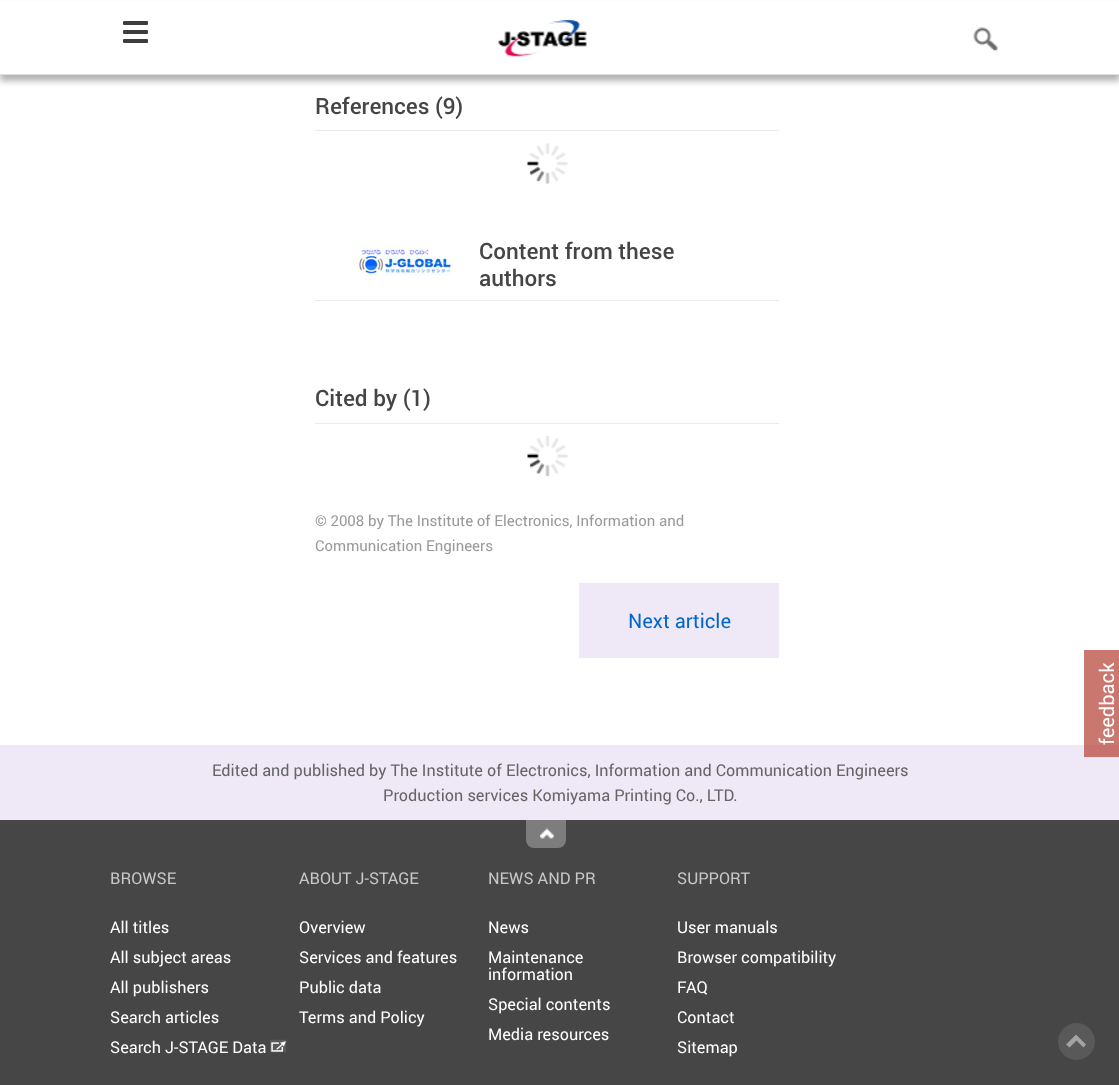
<!DOCTYPE html>
<meta charset="utf-8">
<style>body { margin: 0 } canvas { display: block }</style>
<canvas id="canvas" width="1119" height="1085"></canvas>
<script type="module">
  const canvas = document.getElementById("canvas");
  const g = canvas.getContext("2d");
  g.miterLimit = 4;
  g.fontKerning = "normal";
  function drawText(s, x, y, [font, color]) {
    g.font = font;
    g.fillStyle = color;
    g.fillText(s, x, y);
  }
  function fillBox(x, y, w, h, color) {
    g.fillStyle = color;
    g.fillRect(x, y, w, h);
  }
  function fillRounded(x, y, w, h, r, color) {
    g.fillStyle = color;
    g.beginPath();
    g.roundRect(x, y, w, h, r);
    g.fill();
  }
  async function drawPicture(src, x, y, w, h) {
    const img = new Image();
    img.src = src;
    await img.decode();
    g.drawImage(img, x, y, w, h);
  }

  const s1 = ["500 22.5px Roboto", "#454545"];
  const s2 = ["15px Roboto", "#999999"];
  const s3 = ["20px Roboto", "#0066CC"];
  const s4 = ["16.25px Roboto", "#656565"];
  const s5 = ["16.25px Roboto", "#C8C8C8"];
  const s6 = ["16.25px Roboto", "#FFFFFF"];

  fillBox(0, 0, 1119, 1085, "#FFFFFF");
  fillBox(1084, 650, 35, 95, "#CA7770");
  g.fillStyle = "rgba(0, 0, 0, 0.3)";
  g.filter = "blur(3px)";
  g.beginPath();
  g.rect(0, 6, 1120, 75);
  g.fill();
  g.filter = "none";
  fillBox(0, 1, 1119, 73, "#FFFFFF");
  fillBox(0, 74, 1119, 1, "#E0E0E0");
  fillRounded(123, 21, 25, 4, 1, "#3D3D3D");
  fillRounded(123, 30, 25, 4, 1, "#3D3D3D");
  fillRounded(123, 39, 25, 4, 1, "#3D3D3D");
  await drawPicture("pic1.png", 498, 20, 89, 37);
  await drawPicture("pic2.png", 973, 27, 25, 25);
  fillBox(315, 130, 464, 1, "#EBEBEB");
  drawText("References (9)", 315, 114, s1);
  await drawPicture("pic3.png", 527, 143, 41, 41);
  fillBox(315, 300, 464, 1, "#EBEBEB");
  await drawPicture("pic4.png", 357, 246, 97, 30);
  drawText("Content from these", 479, 259, s1);
  drawText("authors", 479, 286, s1);
  fillBox(315, 423, 464, 1, "#EBEBEB");
  drawText("Cited by (1)", 315, 406, s1);
  await drawPicture("pic5.png", 527, 436, 41, 40);
  drawText("© 2008 by The Institute of Electronics, Information and", 315, 526, s2);
  drawText("Communication Engineers", 315, 551, s2);
  fillBox(579, 583, 200, 75, "#EEE8F7");
  drawText("Next article", 628, 628, s3);
  g.fillStyle = "#FFFFFF";
  g.save();
  g.translate(1114, 745);
  g.rotate(-90 * Math.PI / 180);
  g.fillText("feedback", 0, 0);
  g.restore();
  fillBox(0, 745, 1119, 75, "#EEE8F7");
  fillBox(1084, 745, 35, 12, "#C7726E");
  drawText("Edited and published by The Institute of Electronics, Information and Communication Engineers", 212, 776, s4);
  drawText("Production services Komiyama Printing Co., LTD.", 383, 801, s4);
  fillBox(0, 820, 1119, 265, "#464646");
  g.fillStyle = "#7D7D7D";
  g.beginPath();
  g.roundRect(526, 820, 40, 28, [0, 0, 8, 8]);
  g.fill();
  await drawPicture("pic6.png", 540, 828, 14, 11);
  drawText("BROWSE", 110, 884, s5);
  drawText("All titles", 110, 933, s6);
  drawText("All subject areas", 110, 963, s6);
  drawText("All publishers", 110, 993, s6);
  drawText("Search articles", 110, 1023, s6);
  drawText("Search J-STAGE Data", 110, 1053, s6);
  await drawPicture("pic7.png", 270, 1039, 17, 14);
  drawText("ABOUT J-STAGE", 299, 884, s5);
  drawText("Overview", 299, 933, s6);
  drawText("Services and features", 299, 963, s6);
  drawText("Public data", 299, 993, s6);
  drawText("Terms and Policy", 299, 1023, s6);
  drawText("NEWS AND PR", 488, 884, s5);
  drawText("News", 488, 933, s6);
  drawText("Maintenance", 488, 963, s6);
  drawText("information", 488, 980, s6);
  drawText("Special contents", 488, 1010, s6);
  drawText("Media resources", 488, 1040, s6);
  drawText("SUPPORT", 677, 884, s5);
  drawText("User manuals", 677, 933, s6);
  drawText("Browser compatibility", 677, 963, s6);
  drawText("FAQ", 677, 993, s6);
  drawText("Contact", 677, 1023, s6);
  drawText("Sitemap", 677, 1053, s6);
  g.fillStyle = "#595959";
  g.beginPath();
  g.arc(1076.5, 1041.5, 18.5, 0, Math.PI * 2);
  g.fill();
  g.fillStyle = "#A3A3A3";
  g.beginPath();
  g.moveTo(1076, 1034.5);
  g.lineTo(1086, 1044.5);
  g.lineTo(1083.5, 1047.5);
  g.lineTo(1076.5, 1040.5);
  g.lineTo(1069.5, 1047.5);
  g.lineTo(1066, 1044.5);
  g.closePath();
  g.fill();
</script>
